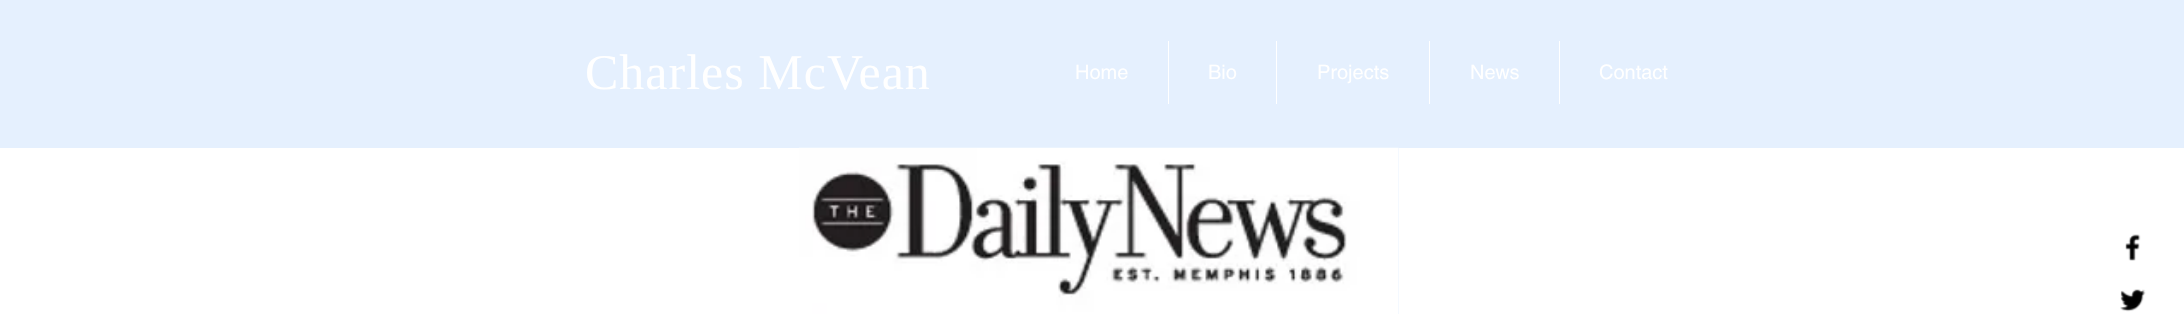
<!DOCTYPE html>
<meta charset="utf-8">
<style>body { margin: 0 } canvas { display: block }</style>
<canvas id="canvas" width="2184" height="314"></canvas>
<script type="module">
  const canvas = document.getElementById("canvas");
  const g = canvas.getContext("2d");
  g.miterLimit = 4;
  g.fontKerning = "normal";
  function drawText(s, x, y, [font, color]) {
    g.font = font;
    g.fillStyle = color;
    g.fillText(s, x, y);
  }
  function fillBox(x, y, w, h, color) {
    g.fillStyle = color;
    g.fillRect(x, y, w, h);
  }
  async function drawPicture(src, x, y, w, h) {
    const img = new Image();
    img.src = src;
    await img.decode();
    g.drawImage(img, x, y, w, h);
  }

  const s1 = ["50px Liberation Serif", "#FFFFFF"];
  const s2 = ["20px helvetica", "#FFFFFF"];

  fillBox(0, 0, 2184, 314, "#FFFFFF");
  fillBox(0, 0, 2184, 148, "#E5F0FE");
  g.letterSpacing = "1px";
  drawText("Charles McVean", 585, 89, s1);
  g.letterSpacing = "0px";
  drawText("Home", 1075, 79, s2);
  fillBox(1168, 41, 1, 63, "#FFFFFF");
  drawText("Bio", 1208, 79, s2);
  fillBox(1276, 41, 1, 63, "#FFFFFF");
  drawText("Projects", 1317, 79, s2);
  fillBox(1429, 41, 1, 63, "#FFFFFF");
  drawText("News", 1470, 79, s2);
  fillBox(1559, 41, 1, 63, "#FFFFFF");
  drawText("Contact", 1599, 79, s2);
  fillBox(1398, 148, 1, 166, "#E5F0FE");
  await drawPicture("pic1.png", 799, 147, 600, 167);
  await drawPicture("pic2.png", 2125, 234, 16, 27);
  await drawPicture("pic3.png", 2120, 289, 26, 23);
</script>
